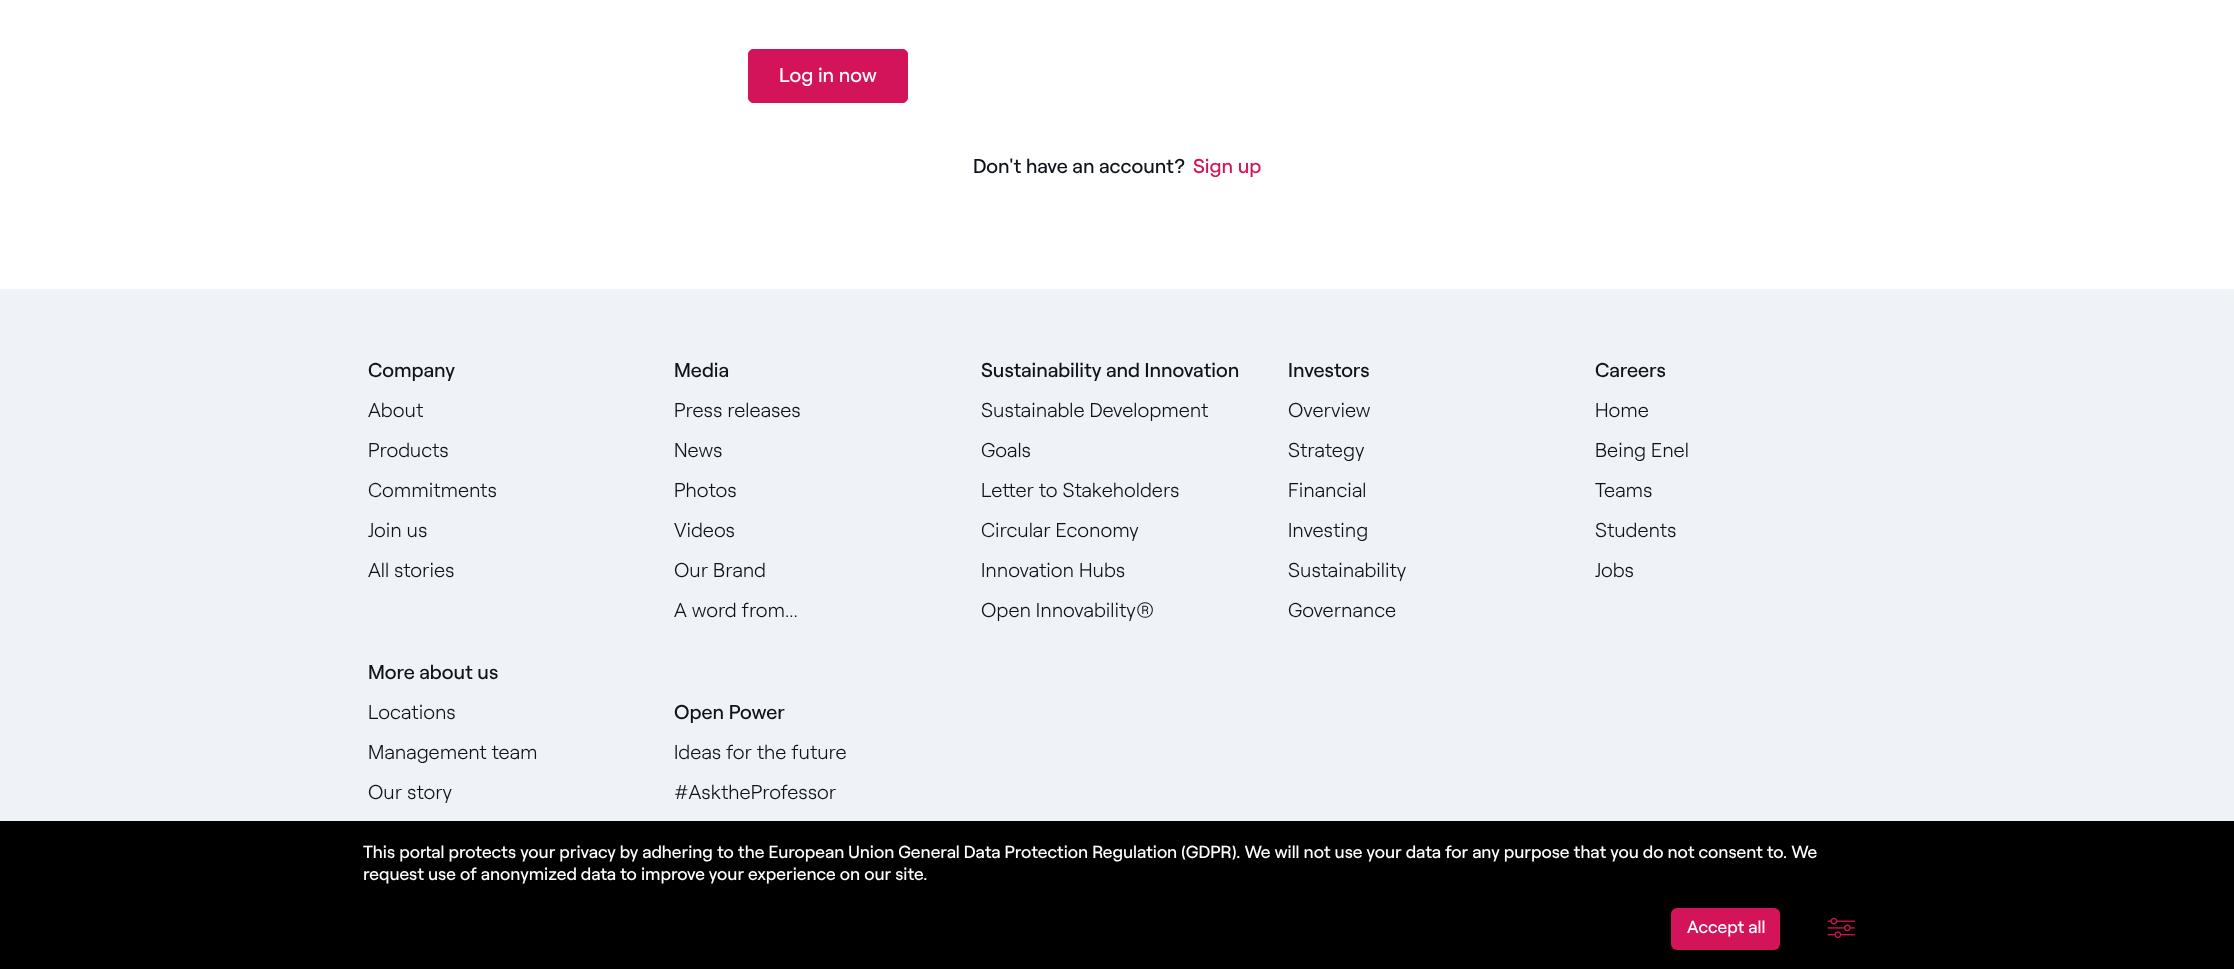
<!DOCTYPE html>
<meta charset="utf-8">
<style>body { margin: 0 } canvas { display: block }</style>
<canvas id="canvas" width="2234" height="969"></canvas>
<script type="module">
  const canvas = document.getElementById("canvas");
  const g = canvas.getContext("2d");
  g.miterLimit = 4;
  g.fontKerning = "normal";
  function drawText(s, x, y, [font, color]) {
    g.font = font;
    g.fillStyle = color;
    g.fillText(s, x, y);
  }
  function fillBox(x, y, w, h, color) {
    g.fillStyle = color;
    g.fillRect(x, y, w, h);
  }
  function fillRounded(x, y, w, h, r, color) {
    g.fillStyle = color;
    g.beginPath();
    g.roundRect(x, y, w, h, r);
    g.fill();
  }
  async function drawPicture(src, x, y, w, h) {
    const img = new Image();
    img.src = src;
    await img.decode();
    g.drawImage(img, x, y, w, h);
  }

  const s1 = ["20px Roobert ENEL", "#FFFFFF"];
  const s2 = ["20px Roobert ENEL", "#0E141A"];
  const s3 = ["20px Roobert ENEL", "#D3135A"];
  const s4 = ["300 20px Roobert ENEL", "#0E141A"];
  const s5 = ["17.5px Roobert ENEL", "#FFFFFF"];

  fillBox(0, 0, 2234, 969, "#FFFFFF");
  g.fillStyle = "#D3135A";
  g.beginPath();
  g.roundRect(748.5, 49.5, 159, 53, 4.5);
  g.fill();
  g.strokeStyle = "#D3135A";
  g.stroke();
  drawText("Log in now", 779, 82, s1);
  drawText("Don't have an account?", 973, 173, s2);
  drawText("Sign up", 1193, 173, s3);
  fillBox(0, 289, 2234, 532, "#EFF2F7");
  drawText("Company", 368, 377, s2);
  drawText("About", 368, 417, s4);
  drawText("Products", 368, 457, s4);
  drawText("Commitments", 368, 497, s4);
  drawText("Join us", 368, 537, s4);
  drawText("All stories", 368, 577, s4);
  drawText("More about us", 368, 679, s2);
  drawText("Locations", 368, 719, s4);
  drawText("Management team", 368, 759, s4);
  drawText("Our story", 368, 799, s4);
  drawText("Media", 674, 377, s2);
  drawText("Press releases", 674, 417, s4);
  drawText("News", 674, 457, s4);
  drawText("Photos", 674, 497, s4);
  drawText("Videos", 674, 537, s4);
  drawText("Our Brand", 674, 577, s4);
  drawText("A word from...", 674, 617, s4);
  drawText("Open Power", 674, 719, s2);
  drawText("Ideas for the future", 674, 759, s4);
  drawText("#AsktheProfessor", 674, 799, s4);
  drawText("Sustainability and Innovation", 981, 377, s2);
  drawText("Sustainable Development", 981, 417, s4);
  drawText("Goals", 981, 457, s4);
  drawText("Letter to Stakeholders", 981, 497, s4);
  drawText("Circular Economy", 981, 537, s4);
  drawText("Innovation Hubs", 981, 577, s4);
  drawText("Open Innovability®", 981, 617, s4);
  drawText("Investors", 1288, 377, s2);
  drawText("Overview", 1288, 417, s4);
  drawText("Strategy", 1288, 457, s4);
  drawText("Financial", 1288, 497, s4);
  drawText("Investing", 1288, 537, s4);
  drawText("Sustainability", 1288, 577, s4);
  drawText("Governance", 1288, 617, s4);
  drawText("Careers", 1595, 377, s2);
  drawText("Home", 1595, 417, s4);
  drawText("Being Enel", 1595, 457, s4);
  drawText("Teams", 1595, 497, s4);
  drawText("Students", 1595, 537, s4);
  drawText("Jobs", 1595, 577, s4);
  fillBox(0, 821, 2234, 148, "#000000");
  drawText("This portal protects your privacy by adhering to the European Union General Data Protection Regulation (GDPR). We will not use your data for any purpose that you do not consent to. We", 363, 858, s5);
  drawText("request use of anonymized data to improve your experience on our site.", 363, 880, s5);
  fillRounded(1671, 908, 109, 42, 6, "#D3135A");
  drawText("Accept all", 1687, 933, s5);
  await drawPicture("pic1.png", 1827, 917, 28, 22);
</script>
